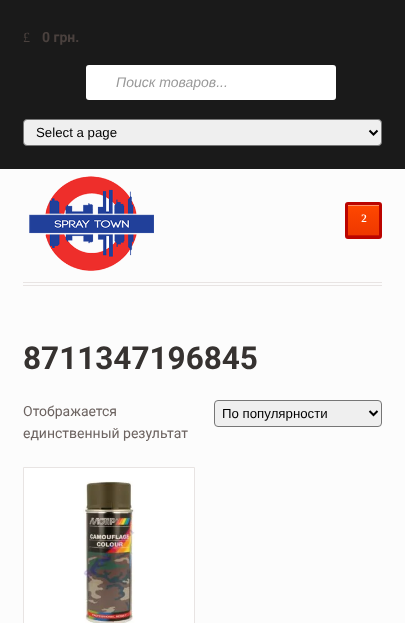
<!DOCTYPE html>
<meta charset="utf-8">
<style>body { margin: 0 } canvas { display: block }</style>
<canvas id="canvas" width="405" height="623"></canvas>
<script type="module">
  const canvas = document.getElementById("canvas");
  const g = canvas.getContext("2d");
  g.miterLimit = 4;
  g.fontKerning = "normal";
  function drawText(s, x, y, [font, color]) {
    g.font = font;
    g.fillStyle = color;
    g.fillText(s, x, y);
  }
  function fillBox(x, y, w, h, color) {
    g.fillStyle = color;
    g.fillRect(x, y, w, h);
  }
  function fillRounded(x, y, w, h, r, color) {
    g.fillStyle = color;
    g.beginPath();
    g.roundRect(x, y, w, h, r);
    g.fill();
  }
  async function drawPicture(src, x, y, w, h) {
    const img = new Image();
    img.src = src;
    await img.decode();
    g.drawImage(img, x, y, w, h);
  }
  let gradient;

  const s1 = ["14px Liberation Serif", "#4A413E"];
  const s2 = ["bold 14px Roboto", "#4A413E"];
  const s3 = ["italic 14px Liberation Sans", "#999999"];
  const s4 = ["13.25px Liberation Sans", "#000000"];
  const s5 = ["19px Liberation Serif", "#FFFFFF"];
  const s6 = ["bold 31.5px Roboto", "#363230"];
  const s7 = ["14px Roboto", "#6C6360"];

  fillBox(0, 0, 405, 623, "#FCFCFC");
  fillBox(0, 0, 405, 169, "#1A1A1A");
  drawText("£", 23, 42, s1);
  drawText("0 грн.", 42, 42, s2);
  fillRounded(86, 65, 250, 35, 3, "#FFFFFF");
  drawText("Поиск товаров...", 116, 87, s3);
  g.fillStyle = "#EFEFEF";
  g.beginPath();
  g.roundRect(23.5, 119.5, 358, 26, 3.5);
  g.fill();
  g.strokeStyle = "#767676";
  g.stroke();
  g.beginPath();
  g.moveTo(369.5, 130.5);
  g.lineTo(373.5, 134.5);
  g.lineTo(377.5, 130.5);
  g.strokeStyle = "#000000";
  g.lineWidth = 2;
  g.stroke();
  drawText("Select a page", 36, 137, s4);
  fillBox(23, 282, 359, 1, "#E8E4E3");
  fillBox(23, 285, 359, 1, "#E8E4E3");
  await drawPicture("pic1.png", 29, 176, 125, 95);
  gradient = g.createLinearGradient(364, 205, 364, 236);
  gradient.addColorStop(0, "#FF4800");
  gradient.addColorStop(1, "#EE3700");
  g.fillStyle = gradient;
  g.fillRect(348, 206, 31, 29);
  fillBox(348, 235, 31, 1, "#CC1500");
  fillBox(348, 205, 31, 1, "#FF9166");
  g.beginPath();
  g.roundRect(346.5, 203.5, 34, 34, 1.5);
  g.strokeStyle = "#BB0400";
  g.lineWidth = 3;
  g.stroke();
  drawText("²", 361, 227, s5);
  drawText("8711347196845", 23, 369, s6);
  drawText("Отображается", 23, 416, s7);
  drawText("единственный результат", 23, 438, s7);
  g.fillStyle = "#EFEFEF";
  g.beginPath();
  g.roundRect(214.5, 400.5, 167, 26, 3.5);
  g.fill();
  g.strokeStyle = "#767676";
  g.lineWidth = 1;
  g.stroke();
  g.beginPath();
  g.moveTo(369.5, 411);
  g.lineTo(373.5, 415);
  g.lineTo(377.5, 411);
  g.strokeStyle = "#000000";
  g.lineWidth = 2;
  g.stroke();
  drawText("По популярности", 222, 418, s4);
  g.fillStyle = "#FFFFFF";
  g.beginPath();
  g.rect(23.5, 467.5, 171, 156);
  g.fill();
  g.strokeStyle = "#E8E4E3";
  g.lineWidth = 1;
  g.stroke();
  await drawPicture("pic2.png", 83, 481, 52, 142);
</script>
